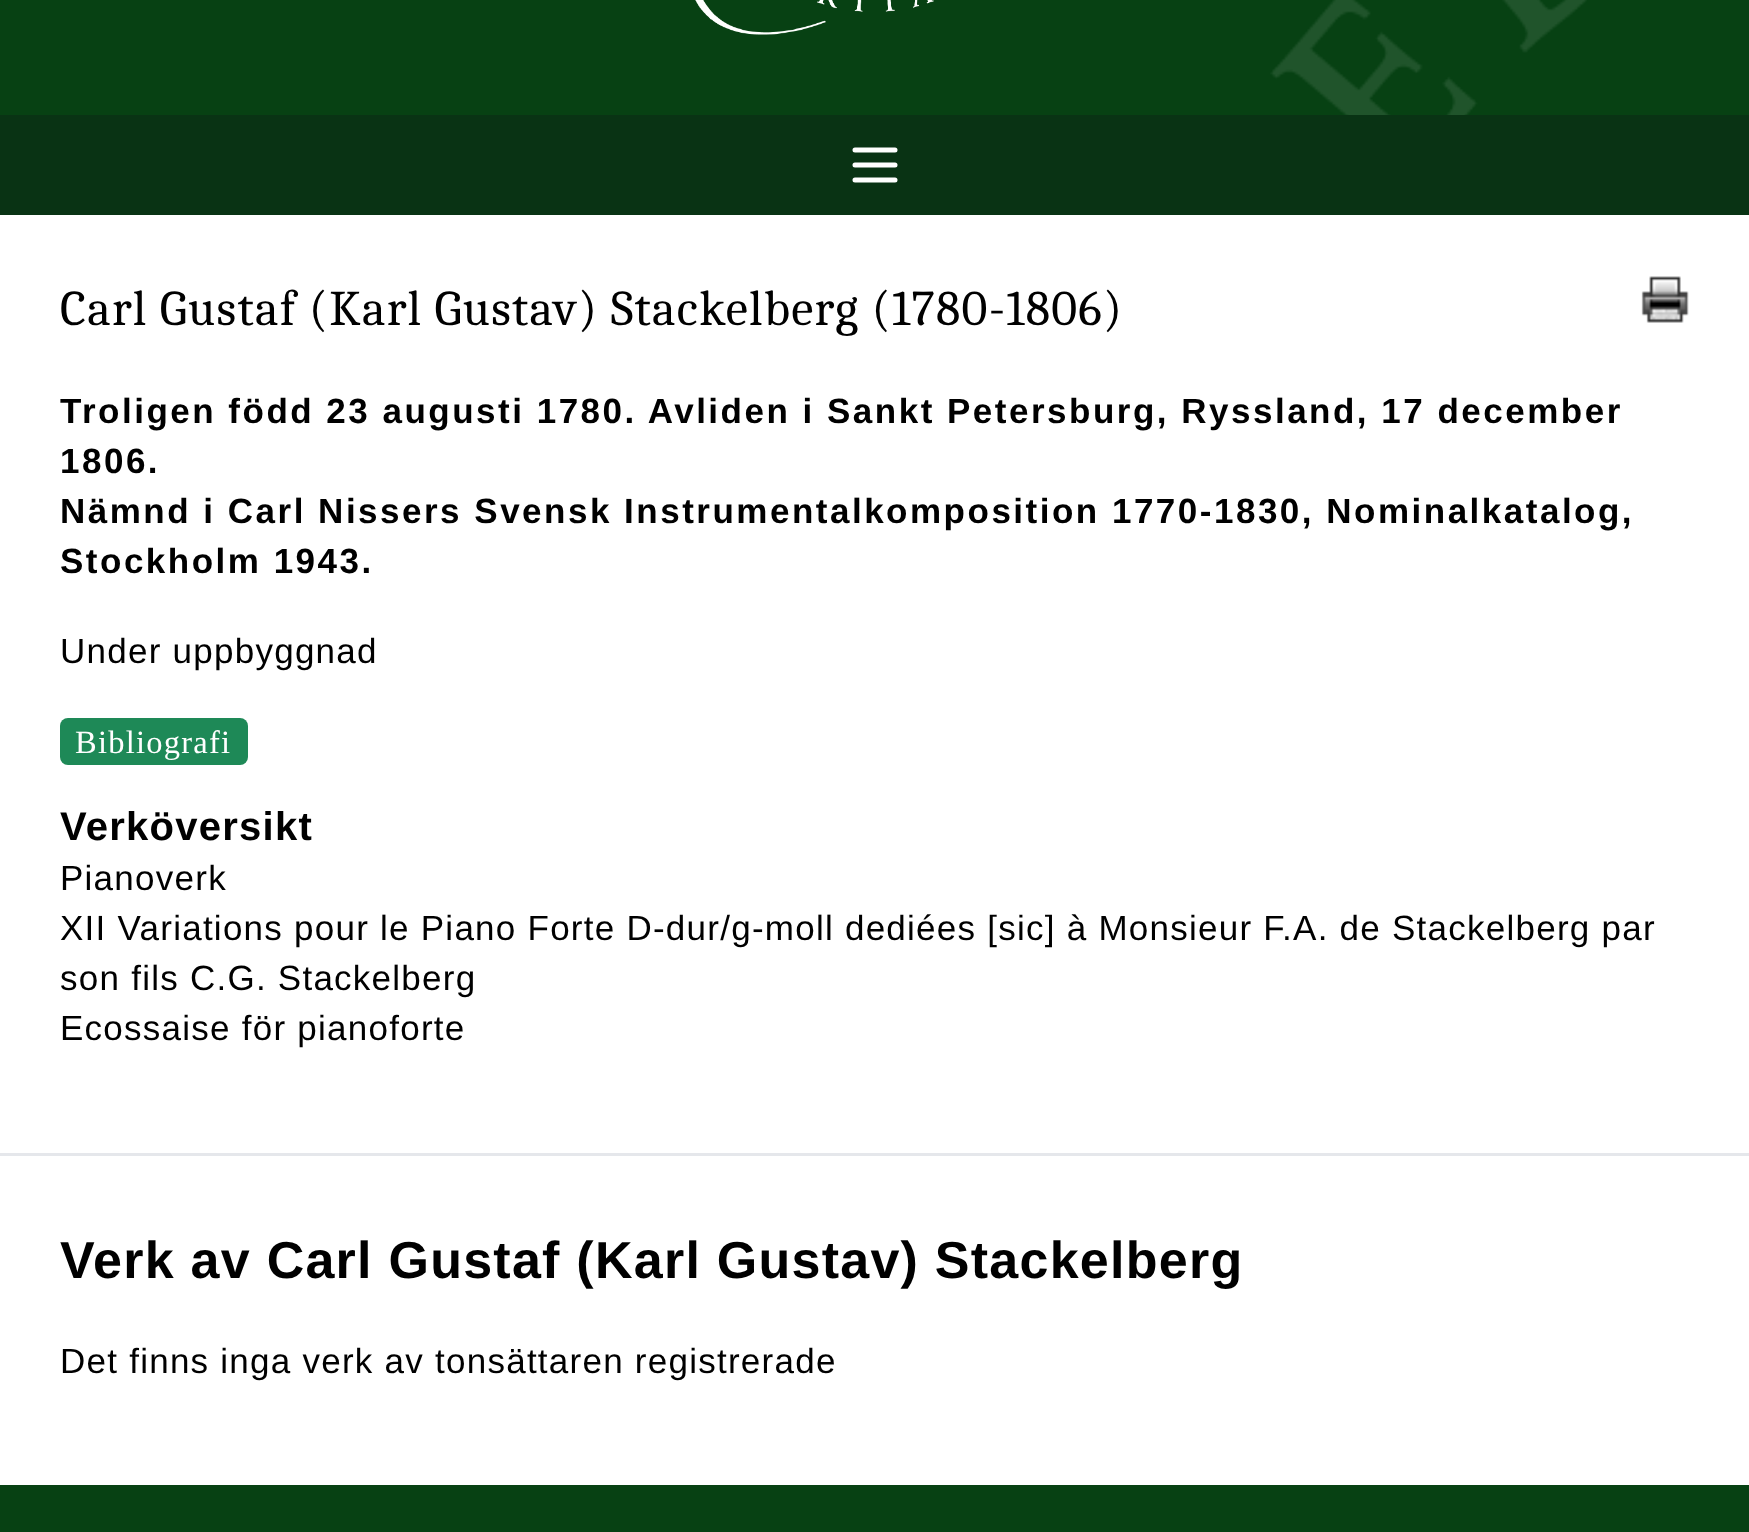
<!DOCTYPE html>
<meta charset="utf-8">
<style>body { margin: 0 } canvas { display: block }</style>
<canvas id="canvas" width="1749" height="1532"></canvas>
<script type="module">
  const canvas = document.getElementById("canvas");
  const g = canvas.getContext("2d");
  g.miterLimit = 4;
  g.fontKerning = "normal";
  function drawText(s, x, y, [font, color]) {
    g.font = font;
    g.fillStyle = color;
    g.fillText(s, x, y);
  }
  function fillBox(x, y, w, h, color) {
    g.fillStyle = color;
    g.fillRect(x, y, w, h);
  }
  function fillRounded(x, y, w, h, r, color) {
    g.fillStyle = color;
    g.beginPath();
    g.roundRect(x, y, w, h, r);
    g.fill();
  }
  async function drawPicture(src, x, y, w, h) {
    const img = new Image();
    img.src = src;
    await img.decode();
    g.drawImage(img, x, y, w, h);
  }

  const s1 = ["50px Caladea", "#000000"];
  const s2 = ["bold 35px Liberation Sans", "#000000"];
  const s3 = ["35px Liberation Sans", "#000000"];
  const s4 = ["32.5px Liberation Serif", "#FFFFFF"];
  const s5 = ["bold 40px Liberation Sans", "#000000"];
  const s6 = ["bold 52px Liberation Sans", "#000000"];

  fillBox(0, 0, 1749, 1532, "#074113");
  await drawPicture("pic1.png", 695, 0, 239, 35);
  fillBox(0, 115, 1749, 100, "#093314");
  g.beginPath();
  g.moveTo(855, 150);
  g.lineTo(895, 150);
  g.moveTo(855, 165);
  g.lineTo(895, 165);
  g.moveTo(855, 180);
  g.lineTo(895, 180);
  g.strokeStyle = "#FFFFFF";
  g.lineWidth = 5;
  g.lineCap = "round";
  g.lineJoin = "round";
  g.stroke();
  await drawPicture("pic2.png", 1270, 0, 317, 115);
  fillBox(0, 215, 1749, 1270, "#FFFFFF");
  g.letterSpacing = "1.25px";
  drawText("Carl Gustaf (Karl Gustav) Stackelberg (1780-1806)", 60, 325, s1);
  await drawPicture("pic3.png", 1641, 276, 48, 47);
  g.letterSpacing = "2.5px";
  drawText("Troligen född 23 augusti 1780. Avliden i Sankt Petersburg, Ryssland, 17 december", 60, 423, s2);
  drawText("1806.", 60, 473, s2);
  drawText("Nämnd i Carl Nissers Svensk Instrumentalkomposition 1770-1830, Nominalkatalog,", 60, 523, s2);
  drawText("Stockholm 1943.", 60, 573, s2);
  g.letterSpacing = "1.25px";
  drawText("Under uppbyggnad", 60, 663, s3);
  fillRounded(60, 718, 188, 47, 8, "#1E8957");
  drawText("Bibliografi", 75, 753, s4);
  drawText("Verköversikt", 60, 840, s5);
  drawText("Pianoverk", 60, 890, s3);
  drawText("XII Variations pour le Piano Forte D-dur/g-moll dediées [sic] à Monsieur F.A. de Stackelberg par", 60, 940, s3);
  drawText("son fils C.G. Stackelberg", 60, 990, s3);
  drawText("Ecossaise för pianoforte", 60, 1040, s3);
  fillBox(0, 1153, 1749, 3, "#E5E7EB");
  drawText("Verk av Carl Gustaf (Karl Gustav) Stackelberg", 60, 1278, s6);
  drawText("Det finns inga verk av tonsättaren registrerade", 60, 1373, s3);
</script>
